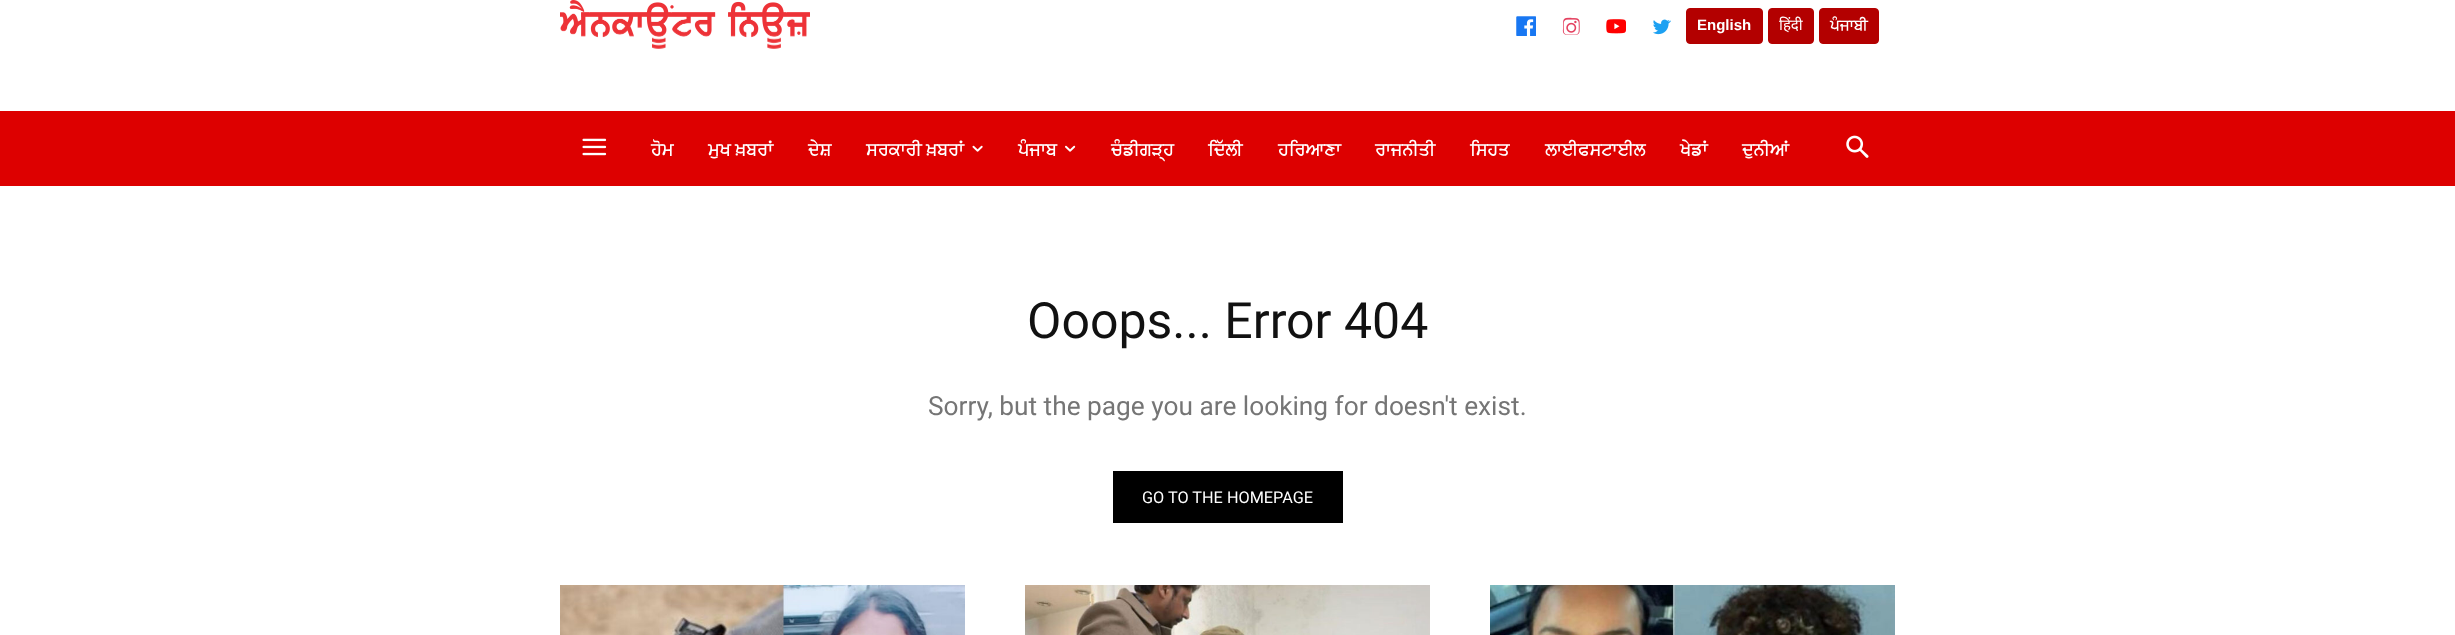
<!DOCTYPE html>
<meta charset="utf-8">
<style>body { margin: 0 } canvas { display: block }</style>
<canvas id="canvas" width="2455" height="635"></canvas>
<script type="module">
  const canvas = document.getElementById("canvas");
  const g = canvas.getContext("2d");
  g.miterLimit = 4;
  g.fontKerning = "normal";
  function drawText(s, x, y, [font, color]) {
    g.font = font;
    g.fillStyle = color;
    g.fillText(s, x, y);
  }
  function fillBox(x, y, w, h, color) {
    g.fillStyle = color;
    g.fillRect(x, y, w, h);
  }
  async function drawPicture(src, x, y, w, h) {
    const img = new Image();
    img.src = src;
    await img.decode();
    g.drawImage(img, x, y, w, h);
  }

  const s1 = ["bold 15px Liberation Sans", "#FFFFFF"];
  const s2 = ["15px Noto Sans", "#FFFFFF"];
  const s3 = ["bold 15px FreeSans", "#FFFFFF"];
  const s4 = ["bold 17.5px FreeSans", "#FFFFFF"];
  const s5 = ["50px Roboto", "#111111"];
  const s6 = ["26.25px Roboto", "#757575"];
  const s7 = ["16.25px Roboto", "#FFFFFF"];

  fillBox(0, 0, 2455, 635, "#FFFFFF");
  await drawPicture("pic1.png", 560, 0, 250, 49);
  await drawPicture("pic2.png", 1516, 16, 20, 20);
  await drawPicture("pic3.png", 1562, 17, 18, 18);
  await drawPicture("pic4.png", 1606, 19, 20, 15);
  await drawPicture("pic5.png", 1653, 19, 18, 16);
  g.fillStyle = "#B30000";
  g.beginPath();
  g.roundRect(1686.5, 8.5, 76, 35, 3.5);
  g.fill();
  g.strokeStyle = "#B30000";
  g.stroke();
  drawText("English", 1697, 30, s1);
  g.fillStyle = "#B30000";
  g.beginPath();
  g.roundRect(1768.5, 8.5, 45, 35, 3.5);
  g.fill();
  g.stroke();
  drawText("हिंदी", 1779, 30, s2);
  g.fillStyle = "#B30000";
  g.beginPath();
  g.roundRect(1819.5, 8.5, 59, 35, 3.5);
  g.fill();
  g.stroke();
  drawText("ਪੰਜਾਬੀ", 1830, 30, s3);
  fillBox(0, 111, 2455, 75, "#DD0000");
  await drawPicture("pic6.png", 582, 138, 25, 18);
  drawText("ਹੋਮ", 651, 155, s4);
  drawText("ਮੁਖ ਖ਼ਬਰਾਂ", 708, 155, s4);
  drawText("ਦੇਸ਼", 808, 155, s4);
  drawText("ਸਰਕਾਰੀ ਖ਼ਬਰਾਂ", 866, 155, s4);
  await drawPicture("pic7.png", 972, 145, 11, 7);
  drawText("ਪੰਜਾਬ", 1018, 155, s4);
  await drawPicture("pic8.png", 1065, 145, 11, 7);
  drawText("ਚੰਡੀਗੜ੍ਹ", 1111, 155, s4);
  drawText("ਦਿੱਲੀ", 1208, 155, s4);
  drawText("ਹਰਿਆਣਾ", 1278, 155, s4);
  drawText("ਰਾਜਨੀਤੀ", 1375, 155, s4);
  drawText("ਸਿਹਤ", 1470, 155, s4);
  drawText("ਲਾਈਫਸਟਾਈਲ", 1545, 155, s4);
  drawText("ਖੇਡਾਂ", 1680, 155, s4);
  drawText("ਦੁਨੀਆਂ", 1742, 155, s4);
  await drawPicture("pic9.png", 1846, 135, 23, 23);
  drawText("Ooops... Error 404", 1027, 338, s5);
  drawText("Sorry, but the page you are looking for doesn't exist.", 928, 415, s6);
  fillBox(1113, 471, 230, 52, "#000000");
  drawText("GO TO THE HOMEPAGE", 1142, 503, s7);
  await drawPicture("pic10.png", 560, 585, 405, 50);
  await drawPicture("pic11.png", 1025, 585, 405, 50);
  await drawPicture("pic12.png", 1490, 585, 405, 50);
</script>
